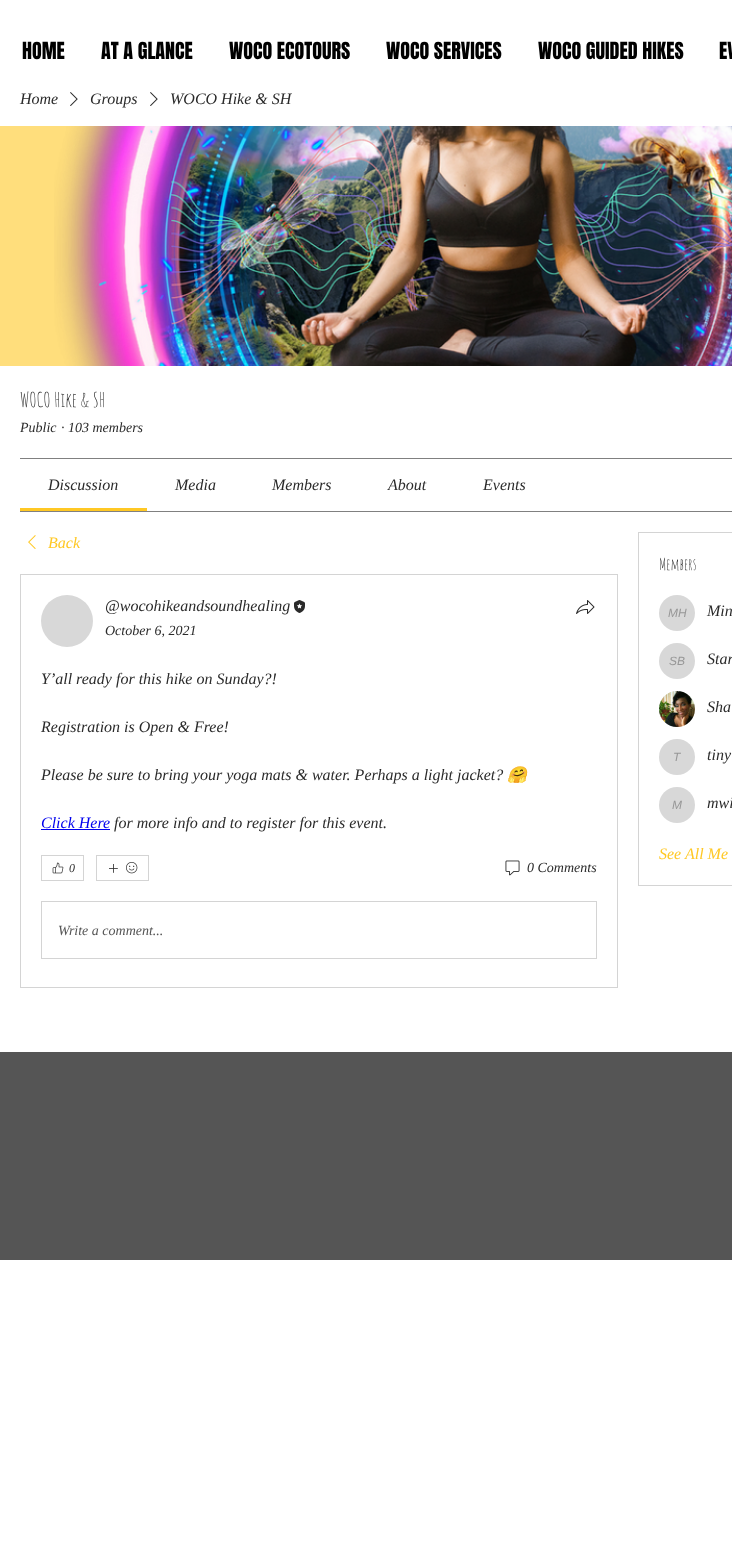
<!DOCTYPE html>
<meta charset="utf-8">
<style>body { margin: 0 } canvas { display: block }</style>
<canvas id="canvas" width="732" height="1552"></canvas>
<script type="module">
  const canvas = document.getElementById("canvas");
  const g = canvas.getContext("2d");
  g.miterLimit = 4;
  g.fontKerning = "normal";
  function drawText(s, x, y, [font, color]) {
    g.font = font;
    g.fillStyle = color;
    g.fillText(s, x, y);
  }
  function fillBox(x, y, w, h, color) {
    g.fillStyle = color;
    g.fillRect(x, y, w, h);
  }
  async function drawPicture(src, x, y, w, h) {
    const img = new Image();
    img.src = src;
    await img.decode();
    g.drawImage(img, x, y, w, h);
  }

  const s1 = ["20px Anton", "#000000"];
  const s2 = ["italic 16px Liberation Serif", "#2A2A2A"];
  const s3 = ["20px Amatic SC", "#2A2A2A"];
  const s4 = ["italic 14px Liberation Serif", "#2A2A2A"];
  const s5 = ["italic 16px Liberation Serif", "#FFC824"];
  const s6 = ["italic 16px Noto Color Emoji", "#2A2A2A"];
  const s7 = ["italic 16px Liberation Serif", "#0000EE"];
  const s8 = ["italic 12px Liberation Serif", "#2A2A2A"];
  const s9 = ["italic 14px Liberation Serif", "#555555"];
  const s10 = ["16px Amatic SC", "#2A2A2A"];
  const s11 = ["italic 12px Liberation Sans", "#979797"];

  fillBox(0, 0, 732, 1552, "#FFFFFF");
  drawText("HOME", 22, 59, s1);
  drawText("AT A GLANCE", 101, 59, s1);
  drawText("WOCO ECOTOURS", 229, 59, s1);
  drawText("WOCO SERVICES", 386, 59, s1);
  drawText("WOCO GUIDED HIKES", 538, 59, s1);
  drawText("EV", 719, 59, s1);
  drawText("Home", 20, 104, s2);
  await drawPicture("pic1.png", 70, 92, 8, 14);
  drawText("Groups", 90, 104, s2);
  await drawPicture("pic1.png", 150, 92, 8, 14);
  drawText("WOCO Hike & SH", 170, 104, s2);
  fillBox(0, 126, 212, 240, "#FFDE7C");
  await drawPicture("pic2.png", 54, 126, 678, 240);
  drawText("WOCO Hike & SH", 20, 407, s3);
  drawText("Public", 20, 432, s4);
  drawText("·", 61, 432, s4);
  drawText("103 members", 68, 432, s4);
  fillBox(20, 458, 712, 1, "#808080");
  fillBox(20, 511, 712, 1, "#808080");
  fillBox(20, 508, 127, 3, "#FFC824");
  drawText("Discussion", 48, 490, s2);
  drawText("Media", 175, 490, s2);
  drawText("Members", 272, 490, s2);
  drawText("About", 388, 490, s2);
  drawText("Events", 483, 490, s2);
  await drawPicture("pic3.png", 28, 535, 8, 14);
  drawText("Back", 48, 548, s5);
  g.strokeStyle = "#D4D4D4";
  g.strokeRect(20.5, 574.5, 597, 413);
  g.fillStyle = "#D8D8D8";
  g.beginPath();
  g.arc(67, 621, 26, 0, Math.PI * 2);
  g.fill();
  drawText("@wocohikeandsoundhealing", 105, 611, s2);
  await drawPicture("pic4.png", 294, 600, 11, 13);
  drawText("October 6, 2021", 105, 635, s4);
  await drawPicture("pic5.png", 576, 600, 19, 14);
  drawText("Y’all ready for this hike on Sunday?!", 41, 684, s2);
  drawText("Registration is Open & Free!", 41, 732, s2);
  drawText("Please be sure to bring your yoga mats & water. Perhaps a light jacket?", 41, 780, s2);
  drawText("🤗", 507, 780, s6);
  drawText("Click Here", 41, 828, s7);
  fillBox(41, 829, 69, 1, "#0000EE");
  drawText("for more info and to register for this event.", 114, 828, s2);
  g.strokeRect(41.5, 855.5, 42, 25);
  await drawPicture("pic6.png", 52, 862, 12, 12);
  drawText("0", 69, 872, s8);
  g.strokeRect(96.5, 855.5, 52, 25);
  await drawPicture("pic7.png", 109, 864, 9, 9);
  await drawPicture("pic8.png", 126, 862, 12, 12);
  await drawPicture("pic9.png", 505, 860, 15, 16);
  drawText("0 Comments", 527, 872, s4);
  g.strokeRect(41.5, 901.5, 555, 57);
  drawText("Write a comment...", 58, 935, s9);
  g.strokeRect(638.5, 532.5, 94, 353);
  drawText("Members", 659, 570, s10);
  g.fillStyle = "#D8D8D8";
  g.beginPath();
  g.arc(677, 613, 18, 0, Math.PI * 2);
  g.fill();
  drawText("MH", 668, 617, s11);
  drawText("Min", 707, 616, s2);
  g.fillStyle = "#D8D8D8";
  g.beginPath();
  g.arc(677, 661, 18, 0, Math.PI * 2);
  g.fill();
  drawText("SB", 669, 665, s11);
  drawText("Star", 707, 664, s2);
  await drawPicture("pic10.png", 659, 691, 36, 36);
  drawText("Sha", 707, 712, s2);
  g.fillStyle = "#D8D8D8";
  g.beginPath();
  g.arc(677, 757, 18, 0, Math.PI * 2);
  g.fill();
  drawText("T", 673, 761, s11);
  drawText("tiny", 707, 760, s2);
  g.fillStyle = "#D8D8D8";
  g.beginPath();
  g.arc(677, 805, 18, 0, Math.PI * 2);
  g.fill();
  drawText("M", 672, 809, s11);
  drawText("mwi", 707, 808, s2);
  drawText("See All Me", 659, 859, s5);
  fillBox(0, 1052, 732, 208, "#555555");
</script>
